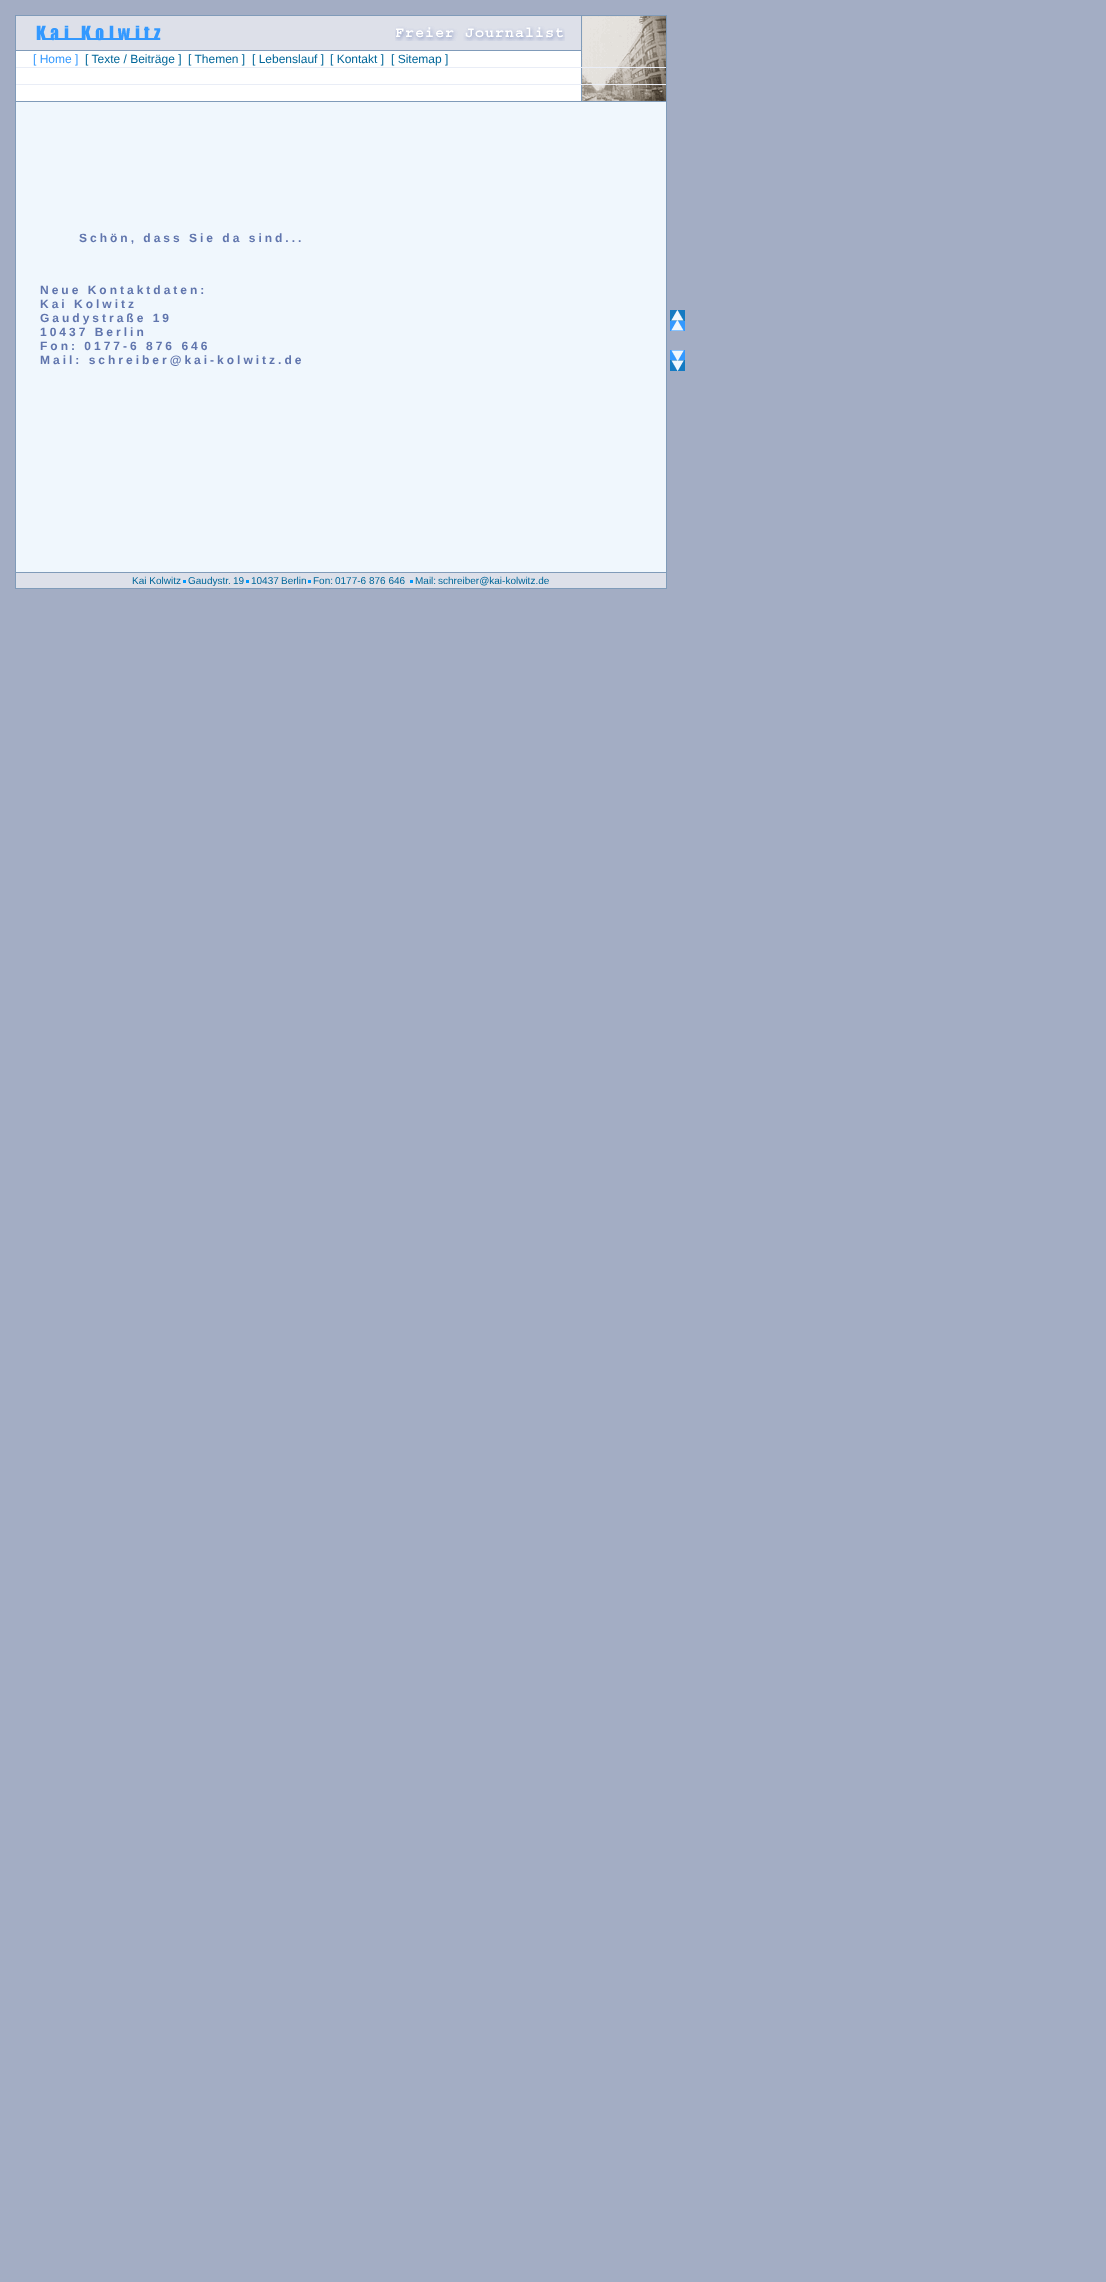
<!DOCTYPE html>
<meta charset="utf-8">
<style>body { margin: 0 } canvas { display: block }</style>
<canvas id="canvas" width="1106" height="2282"></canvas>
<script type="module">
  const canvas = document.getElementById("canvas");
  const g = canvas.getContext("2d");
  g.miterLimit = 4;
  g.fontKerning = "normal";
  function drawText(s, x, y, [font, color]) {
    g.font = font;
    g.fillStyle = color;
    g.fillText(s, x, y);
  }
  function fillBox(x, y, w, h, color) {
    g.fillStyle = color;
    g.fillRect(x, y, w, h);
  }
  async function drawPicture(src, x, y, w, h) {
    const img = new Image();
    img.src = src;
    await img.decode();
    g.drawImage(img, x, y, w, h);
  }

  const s1 = ["12px Liberation Sans", "#3399FF"];
  const s2 = ["12px Liberation Sans", "#006699"];
  const s3 = ["bold 12px Liberation Sans", "#6075AD"];
  const s4 = ["10px Liberation Sans", "#006699"];

  fillBox(0, 0, 1106, 2282, "#A3ADC4");
  fillBox(15, 15, 652, 574, "#809BB9");
  fillBox(16, 16, 565, 34, "#DDE0E9");
  await drawPicture("pic1.png", 36, 25, 125, 16);
  await drawPicture("pic2.png", 582, 16, 84, 85);
  await drawPicture("pic3.png", 395, 26, 170, 15);
  fillBox(16, 51, 565, 16, "#FFFFFF");
  drawText("[ Home ]", 33, 63, s1);
  drawText("[ Texte / Beiträge ]", 85, 63, s2);
  drawText("[ Themen ]", 188, 63, s2);
  drawText("[ Lebenslauf ]", 252, 63, s2);
  drawText("[ Kontakt ]", 330, 63, s2);
  drawText("[ Sitemap ]", 391, 63, s2);
  fillBox(16, 67, 650, 1, "#E9EDF6");
  fillBox(16, 68, 565, 16, "#FFFFFF");
  fillBox(16, 84, 650, 1, "#E9EDF6");
  fillBox(16, 85, 565, 16, "#FFFFFF");
  fillBox(16, 102, 650, 470, "#F0F7FD");
  g.letterSpacing = "3px";
  drawText("Schön, dass Sie da sind...", 79, 242, s3);
  drawText("Neue Kontaktdaten:", 40, 294, s3);
  drawText("Kai Kolwitz", 40, 308, s3);
  drawText("Gaudystraße 19", 40, 322, s3);
  drawText("10437 Berlin", 40, 336, s3);
  drawText("Fon: 0177-6 876 646", 40, 350, s3);
  drawText("Mail: schreiber@kai-kolwitz.de", 40, 364, s3);
  fillBox(16, 573, 650, 15, "#DDE0E9");
  g.letterSpacing = "0px";
  drawText("Kai Kolwitz", 132, 584, s4);
  drawText("Gaudystr.", 188, 584, s4);
  fillBox(183, 580, 3, 3, "#0099FF");
  drawText("19", 233, 584, s4);
  fillBox(246, 580, 3, 3, "#0099FF");
  drawText("10437", 251, 584, s4);
  drawText("Berlin", 281, 584, s4);
  fillBox(308, 580, 3, 3, "#0099FF");
  drawText("Fon:", 313, 584, s4);
  drawText("0177-6 876 646", 335, 584, s4);
  fillBox(410, 580, 3, 3, "#0099FF");
  drawText("Mail:", 415, 584, s4);
  drawText("schreiber@kai-kolwitz.de", 438, 584, s4);
  await drawPicture("pic4.png", 670, 310, 15, 21);
  await drawPicture("pic5.png", 670, 350, 15, 21);
</script>
